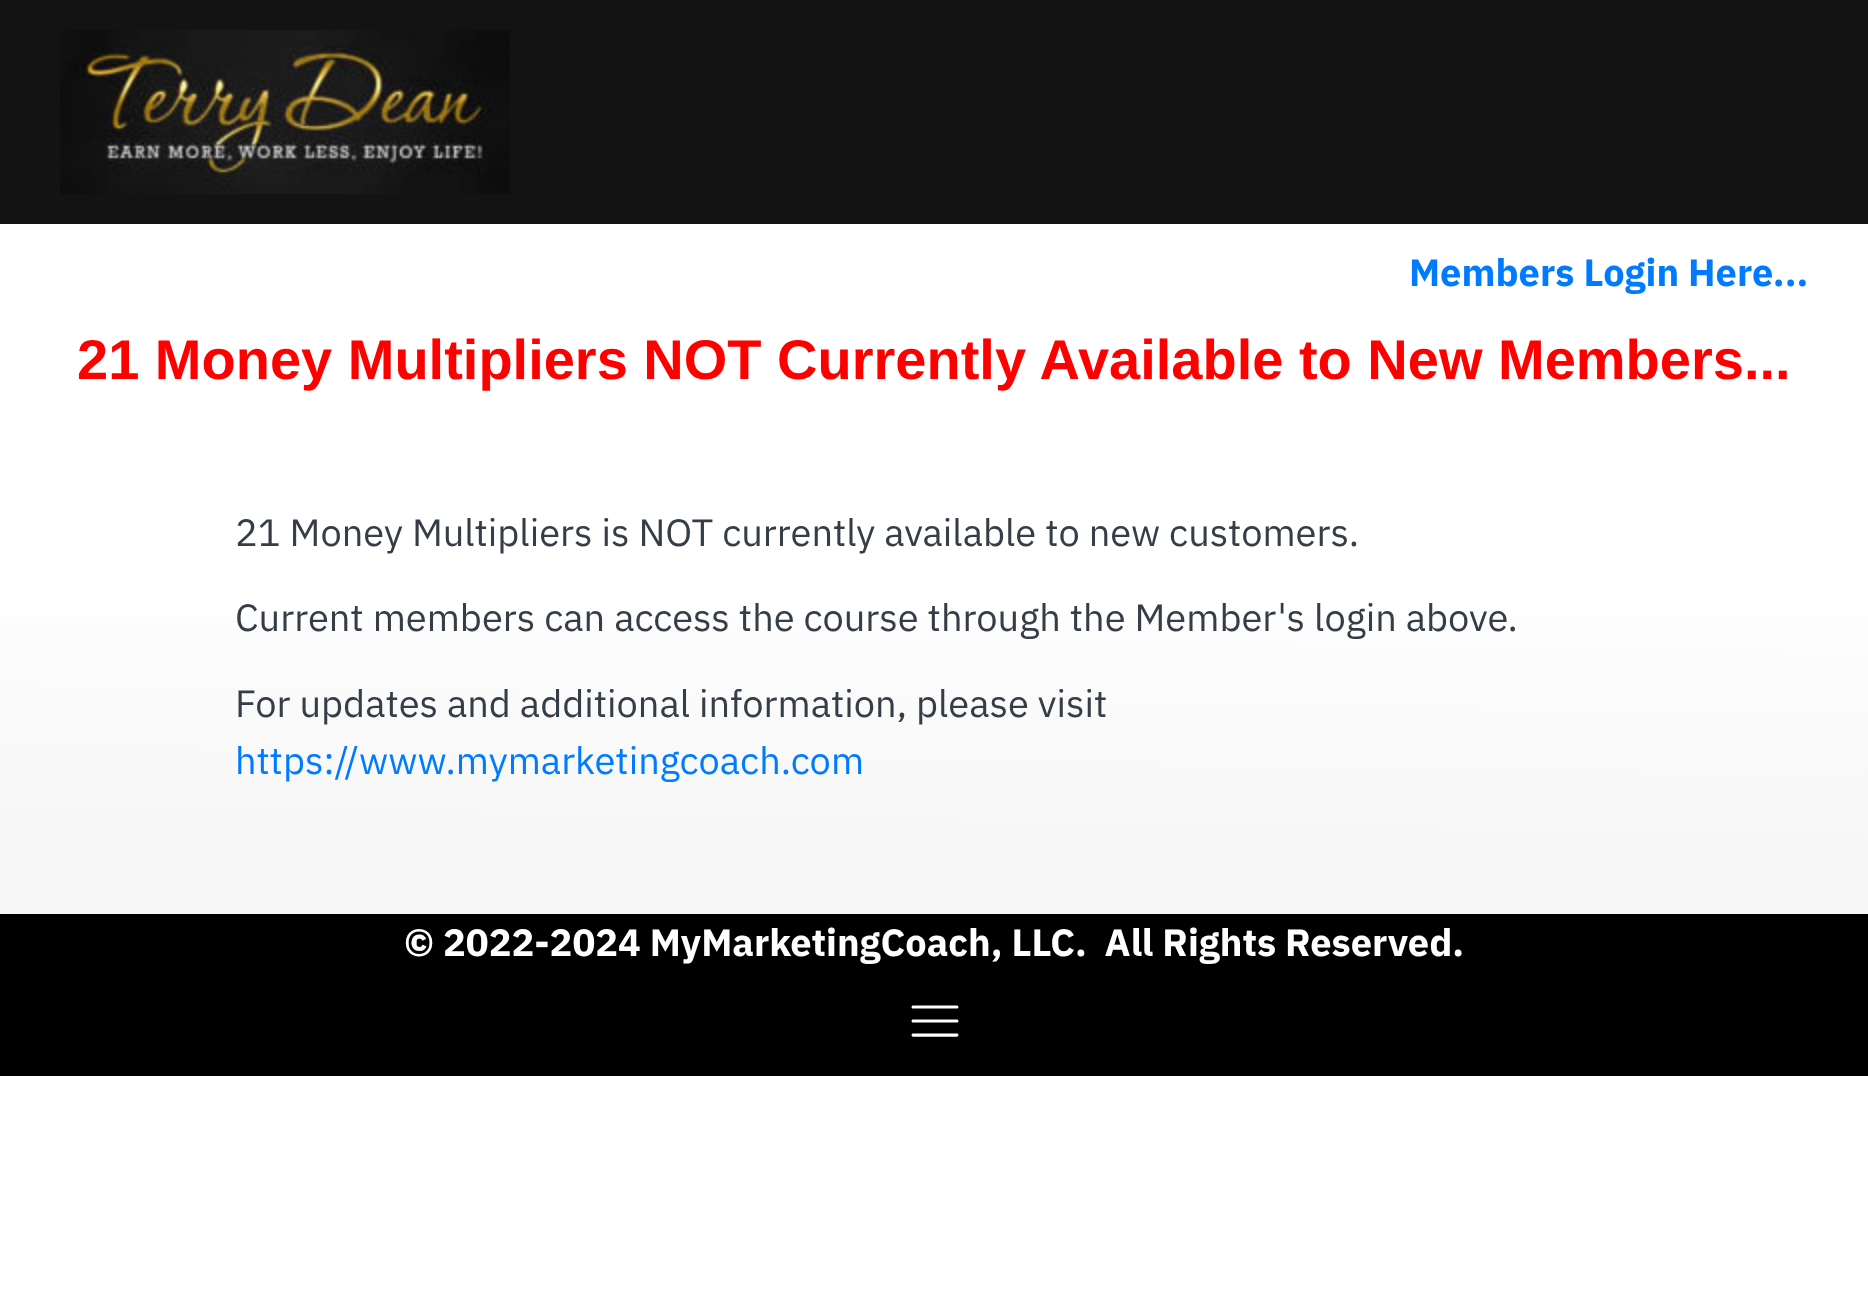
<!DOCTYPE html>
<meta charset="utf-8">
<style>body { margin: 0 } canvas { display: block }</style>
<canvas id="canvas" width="1868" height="1311"></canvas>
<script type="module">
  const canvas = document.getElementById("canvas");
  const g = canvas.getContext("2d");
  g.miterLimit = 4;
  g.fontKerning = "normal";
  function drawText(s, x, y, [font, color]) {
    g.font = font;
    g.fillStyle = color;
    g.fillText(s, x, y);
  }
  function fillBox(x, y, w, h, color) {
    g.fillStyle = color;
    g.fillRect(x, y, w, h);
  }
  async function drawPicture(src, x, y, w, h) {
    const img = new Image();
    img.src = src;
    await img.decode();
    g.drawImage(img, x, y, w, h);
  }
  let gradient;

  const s1 = ["bold 38px IBM Plex Sans", "#007BFF"];
  const s2 = ["bold 56px Liberation Sans", "#FF0000"];
  const s3 = ["38px IBM Plex Sans", "#353D46"];
  const s4 = ["38px IBM Plex Sans", "#007BFF"];
  const s5 = ["bold 38px IBM Plex Sans", "#FFFFFF"];

  fillBox(0, 0, 1868, 1311, "#FFFFFF");
  fillBox(0, 0, 1868, 224, "#131313");
  await drawPicture("pic1.png", 60, 30, 450, 164);
  drawText("Members Login Here...", 1409, 286, s1);
  drawText("21 Money Multipliers NOT Currently Available to New Members...", 77, 379, s2);
  drawText("21 Money Multipliers is NOT currently available to new customers.", 235, 546, s3);
  gradient = g.createLinearGradient(940, 208, 928, 930);
  gradient.addColorStop(0.56, "#FDFDFD");
  gradient.addColorStop(0.87, "#F7F7F7");
  g.fillStyle = gradient;
  g.fillRect(0, 615, 1868, 299);
  drawText("Current members can access the course through the Member's login above.", 235, 631, s3);
  drawText("For updates and additional information, please visit", 235, 717, s3);
  drawText("https://www.mymarketingcoach.com", 235, 774, s4);
  fillBox(0, 914, 1868, 162, "#000000");
  drawText("© 2022-2024 MyMarketingCoach, LLC.  All Rights Reserved.", 404, 956, s5);
  await drawPicture("pic2.png", 911, 1005, 48, 32);
</script>
